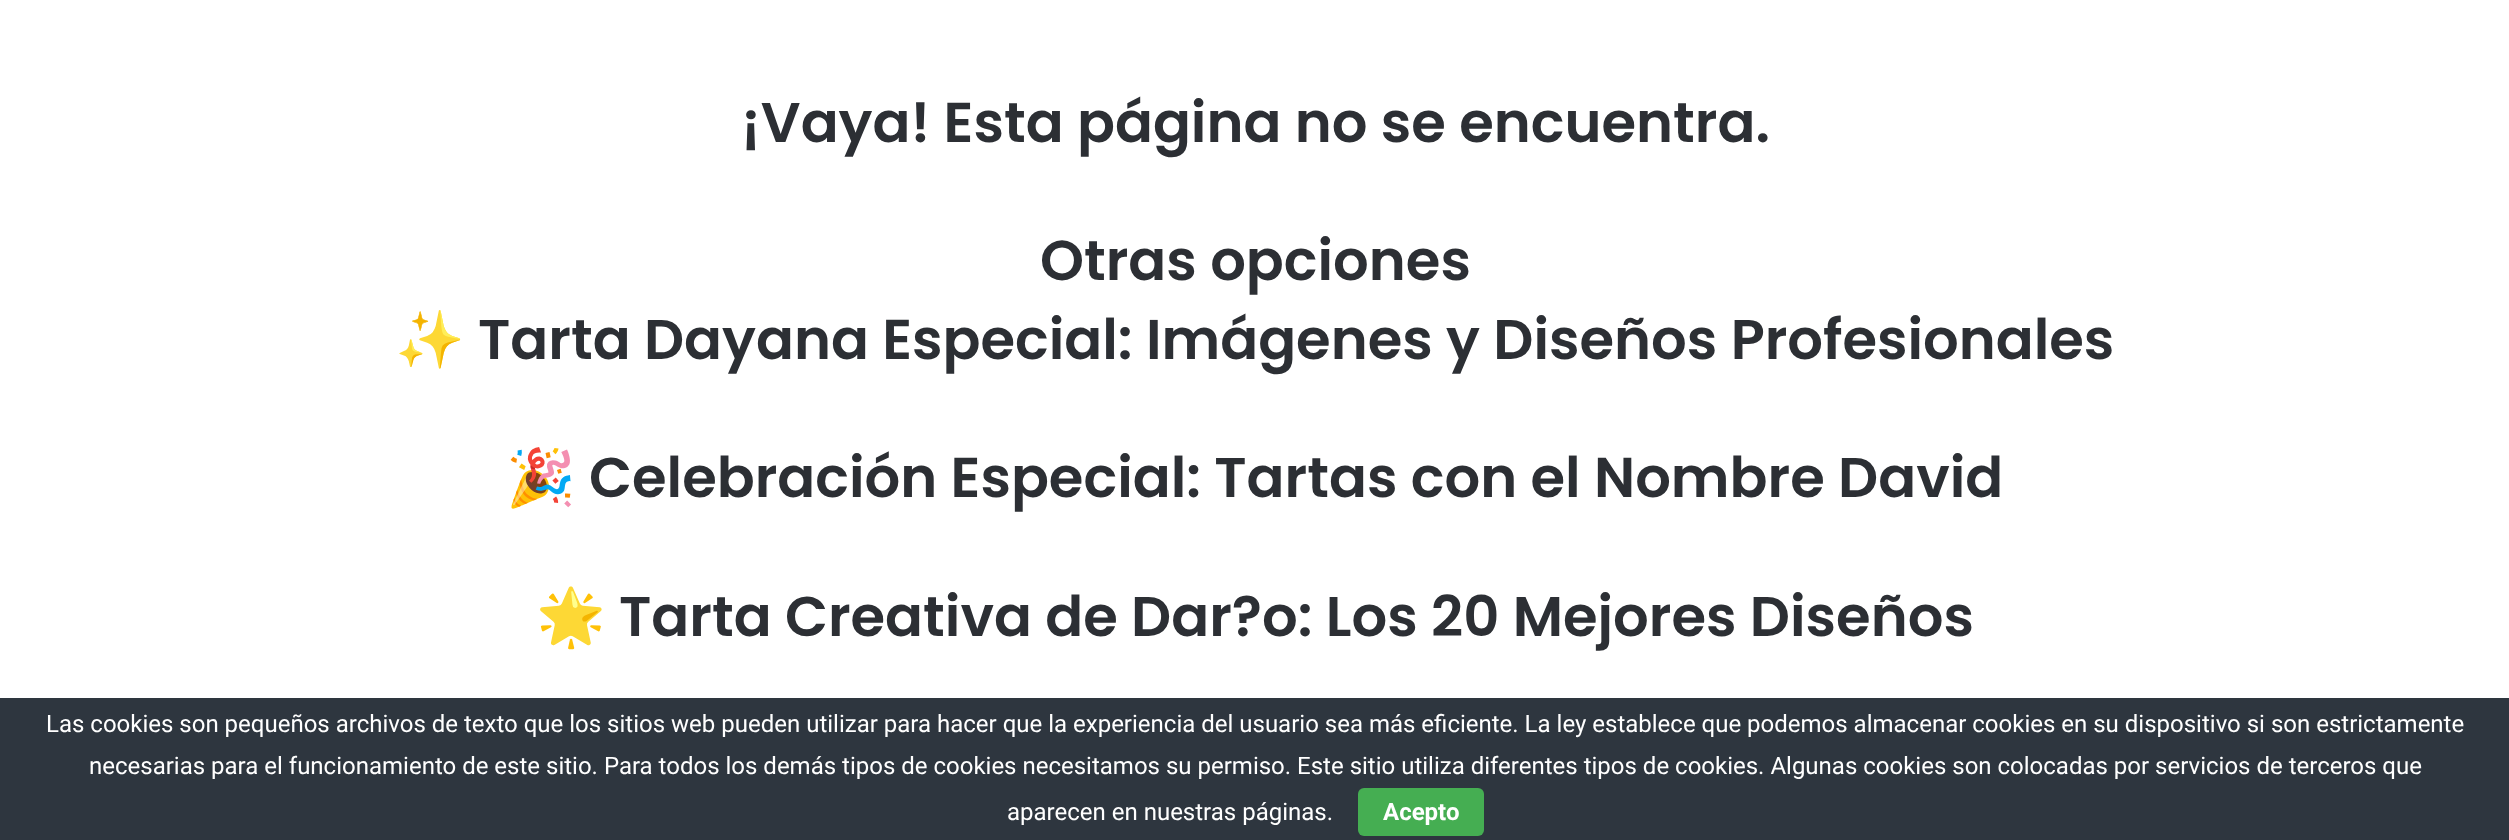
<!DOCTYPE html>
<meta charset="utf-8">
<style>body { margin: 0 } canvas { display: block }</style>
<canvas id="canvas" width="2509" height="840"></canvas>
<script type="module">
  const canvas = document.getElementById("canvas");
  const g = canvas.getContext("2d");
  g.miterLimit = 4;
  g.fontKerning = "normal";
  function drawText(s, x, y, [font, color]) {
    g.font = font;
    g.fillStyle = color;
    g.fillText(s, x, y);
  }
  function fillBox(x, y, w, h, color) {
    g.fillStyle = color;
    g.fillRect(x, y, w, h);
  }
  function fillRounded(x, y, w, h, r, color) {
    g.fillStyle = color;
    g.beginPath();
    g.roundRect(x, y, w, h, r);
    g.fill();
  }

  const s1 = ["600 56px Poppins", "#2C2F34"];
  const s2 = ["bold 56px Noto Color Emoji", "#2C2F34"];
  const s3 = ["24px Roboto", "#FFFFFF"];
  const s4 = ["bold 24px Roboto", "#FFFFFF"];

  fillBox(0, 0, 2509, 840, "#FFFFFF");
  drawText("¡Vaya! Esta página no se encuentra.", 741, 142, s1);
  drawText("Otras opciones", 1040, 280, s1);
  drawText("✨", 395, 359, s2);
  drawText("Tarta Dayana Especial: Imágenes y Diseños Profesionales", 478, 359, s1);
  drawText("🎉", 506, 497, s2);
  drawText("Celebración Especial: Tartas con el Nombre David", 589, 497, s1);
  drawText("🌟", 536, 636, s2);
  drawText("Tarta Creativa de Dar?o: Los 20 Mejores Diseños", 619, 636, s1);
  fillBox(0, 698, 2509, 142, "#2E363F");
  drawText("Las cookies son pequeños archivos de texto que los sitios web pueden utilizar para hacer que la experiencia del usuario sea más eficiente. La ley establece que podemos almacenar cookies en su dispositivo si son estrictamente", 46, 732, s3);
  drawText("necesarias para el funcionamiento de este sitio. Para todos los demás tipos de cookies necesitamos su permiso. Este sitio utiliza diferentes tipos de cookies. Algunas cookies son colocadas por servicios de terceros que", 89, 774, s3);
  drawText("aparecen en nuestras páginas.", 1007, 820, s3);
  fillRounded(1358, 788, 126, 48, 6, "#45AE52");
  drawText("Acepto", 1383, 820, s4);
</script>
